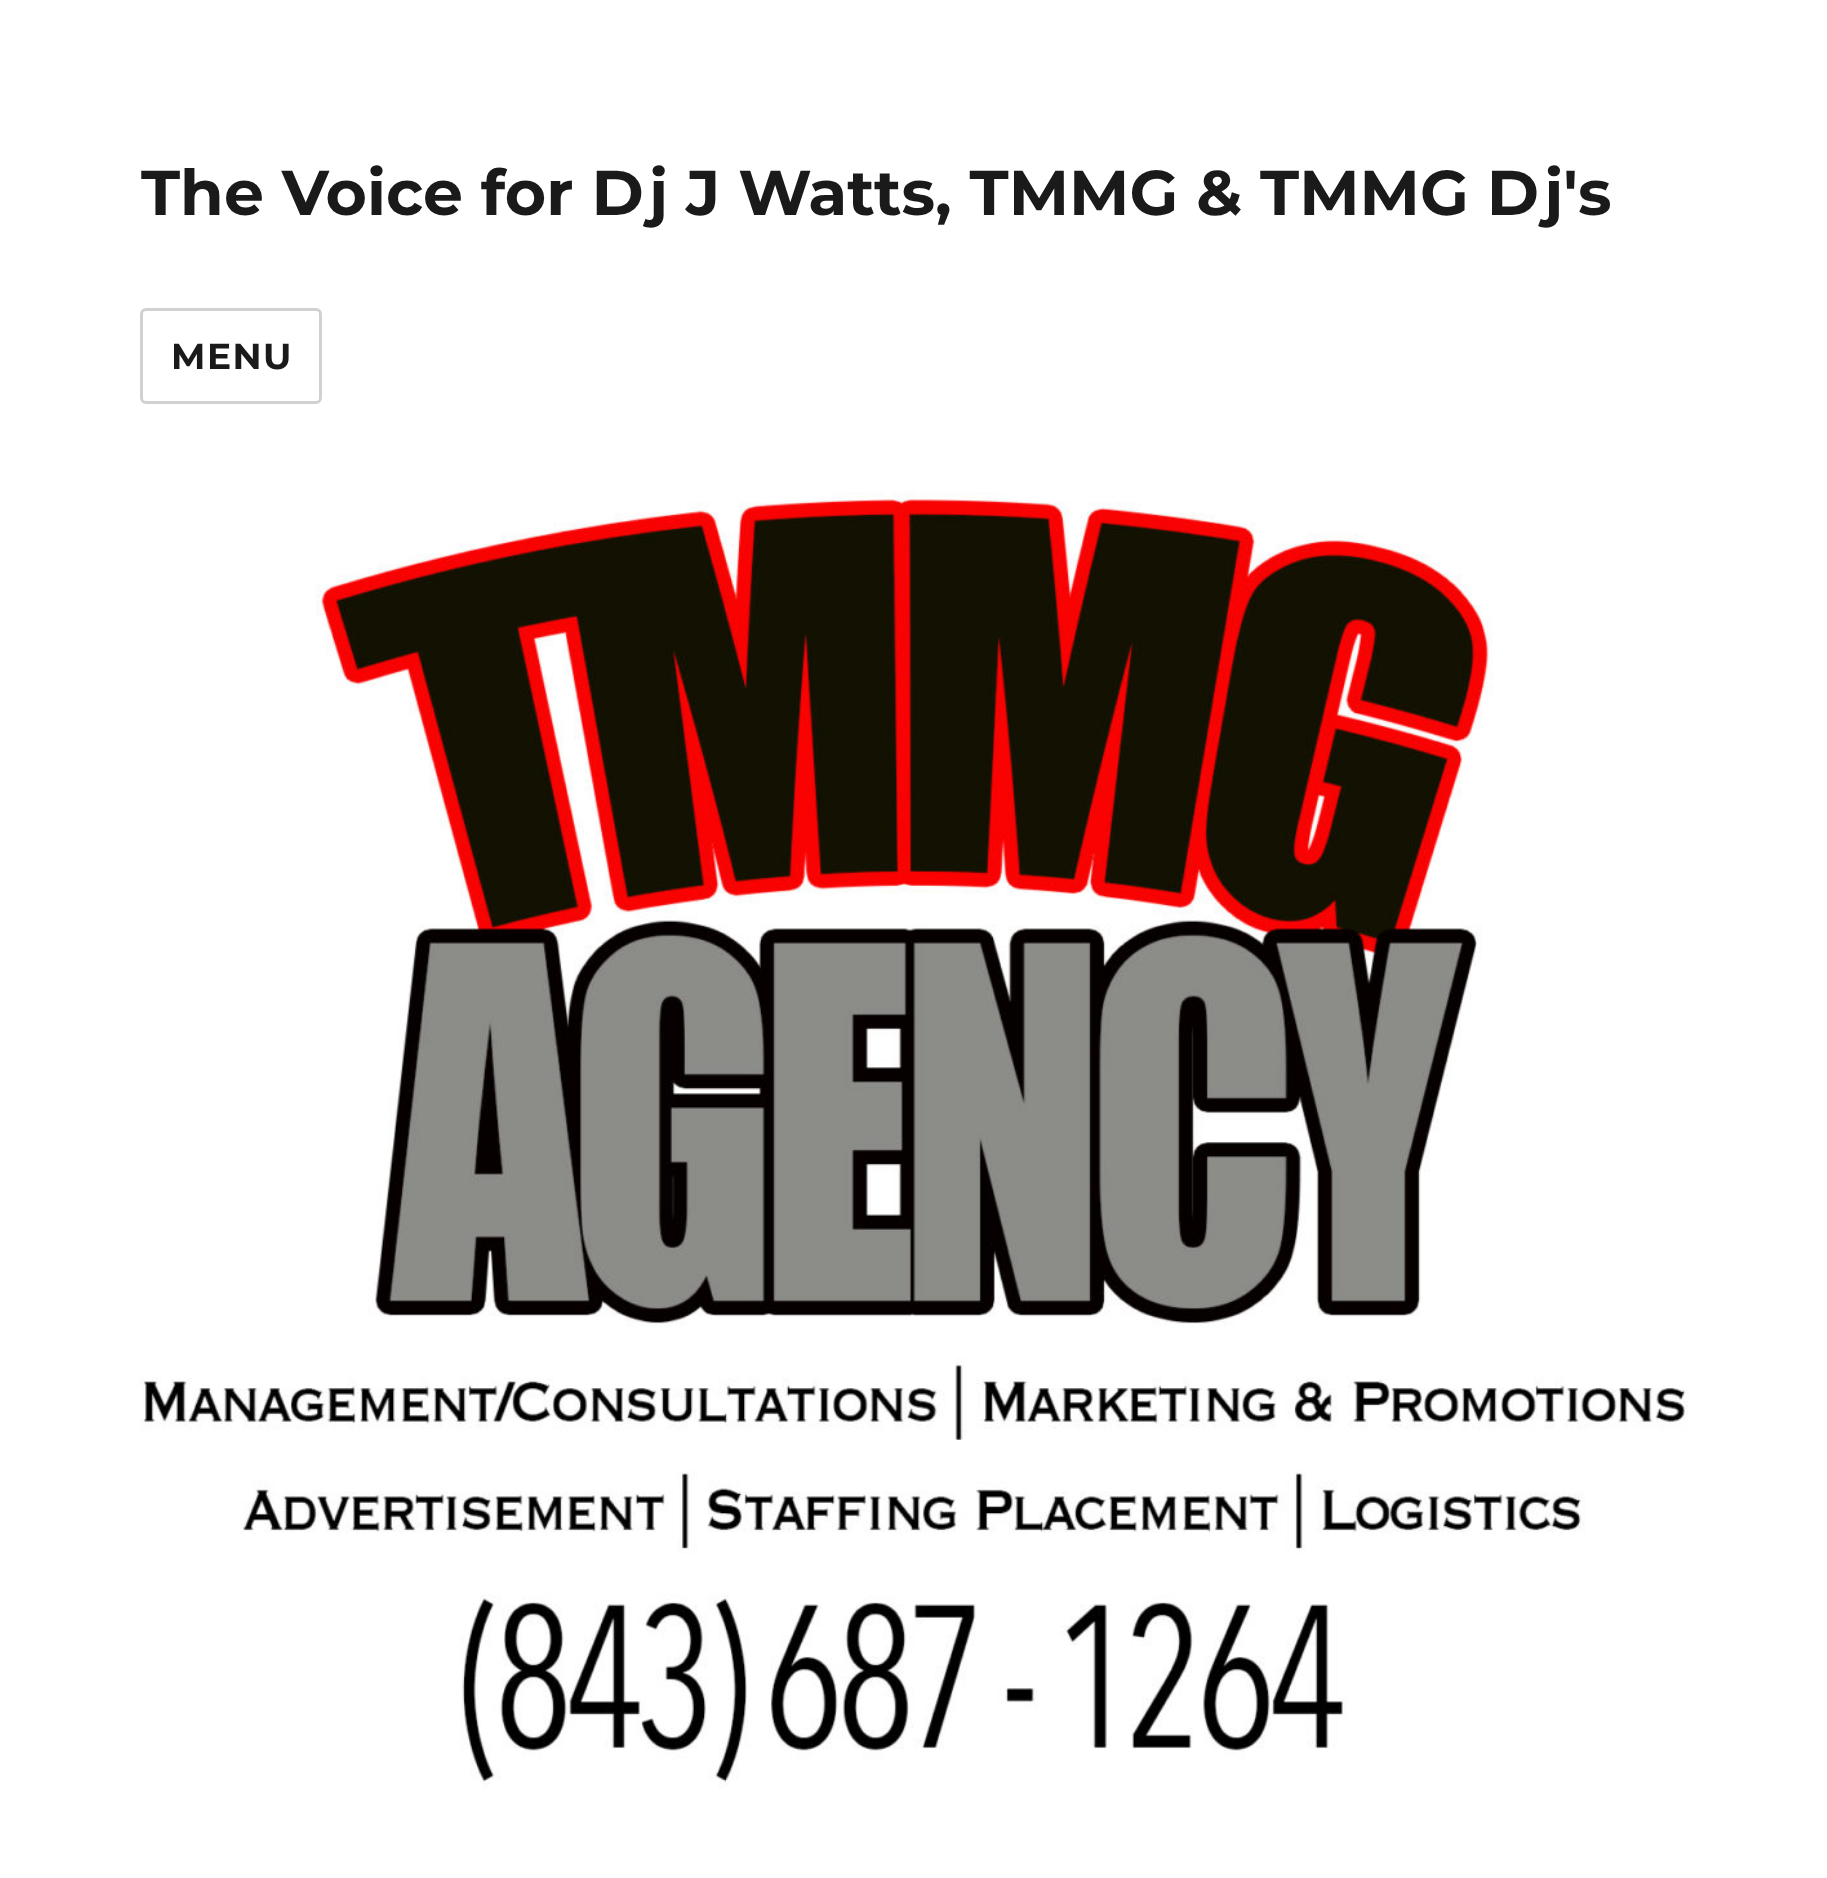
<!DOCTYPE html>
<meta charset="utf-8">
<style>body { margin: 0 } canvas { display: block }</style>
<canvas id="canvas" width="1827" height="1878"></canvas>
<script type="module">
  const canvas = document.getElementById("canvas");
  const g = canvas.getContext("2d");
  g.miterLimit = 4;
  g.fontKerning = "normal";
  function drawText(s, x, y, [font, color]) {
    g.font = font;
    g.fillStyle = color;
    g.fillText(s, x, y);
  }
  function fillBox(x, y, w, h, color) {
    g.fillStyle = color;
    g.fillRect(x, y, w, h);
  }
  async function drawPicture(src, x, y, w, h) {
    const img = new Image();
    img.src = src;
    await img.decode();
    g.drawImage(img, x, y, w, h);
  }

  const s1 = ["100 63.25px Montserrat", "#1A1A1A"];
  const s2 = ["100 36px Montserrat", "#1A1A1A"];

  fillBox(0, 0, 1827, 1878, "#FFFFFF");
  drawText("The Voice for Dj J Watts, TMMG & TMMG Dj's", 141, 215, s1);
  g.beginPath();
  g.roundRect(141.5, 309.5, 179, 93, 4.5);
  g.strokeStyle = "#D1D1D1";
  g.lineWidth = 3;
  g.stroke();
  g.letterSpacing = "1.5px";
  drawText("MENU", 171, 369, s2);
  await drawPicture("pic1.png", 140, 492, 1549, 1296);
</script>
